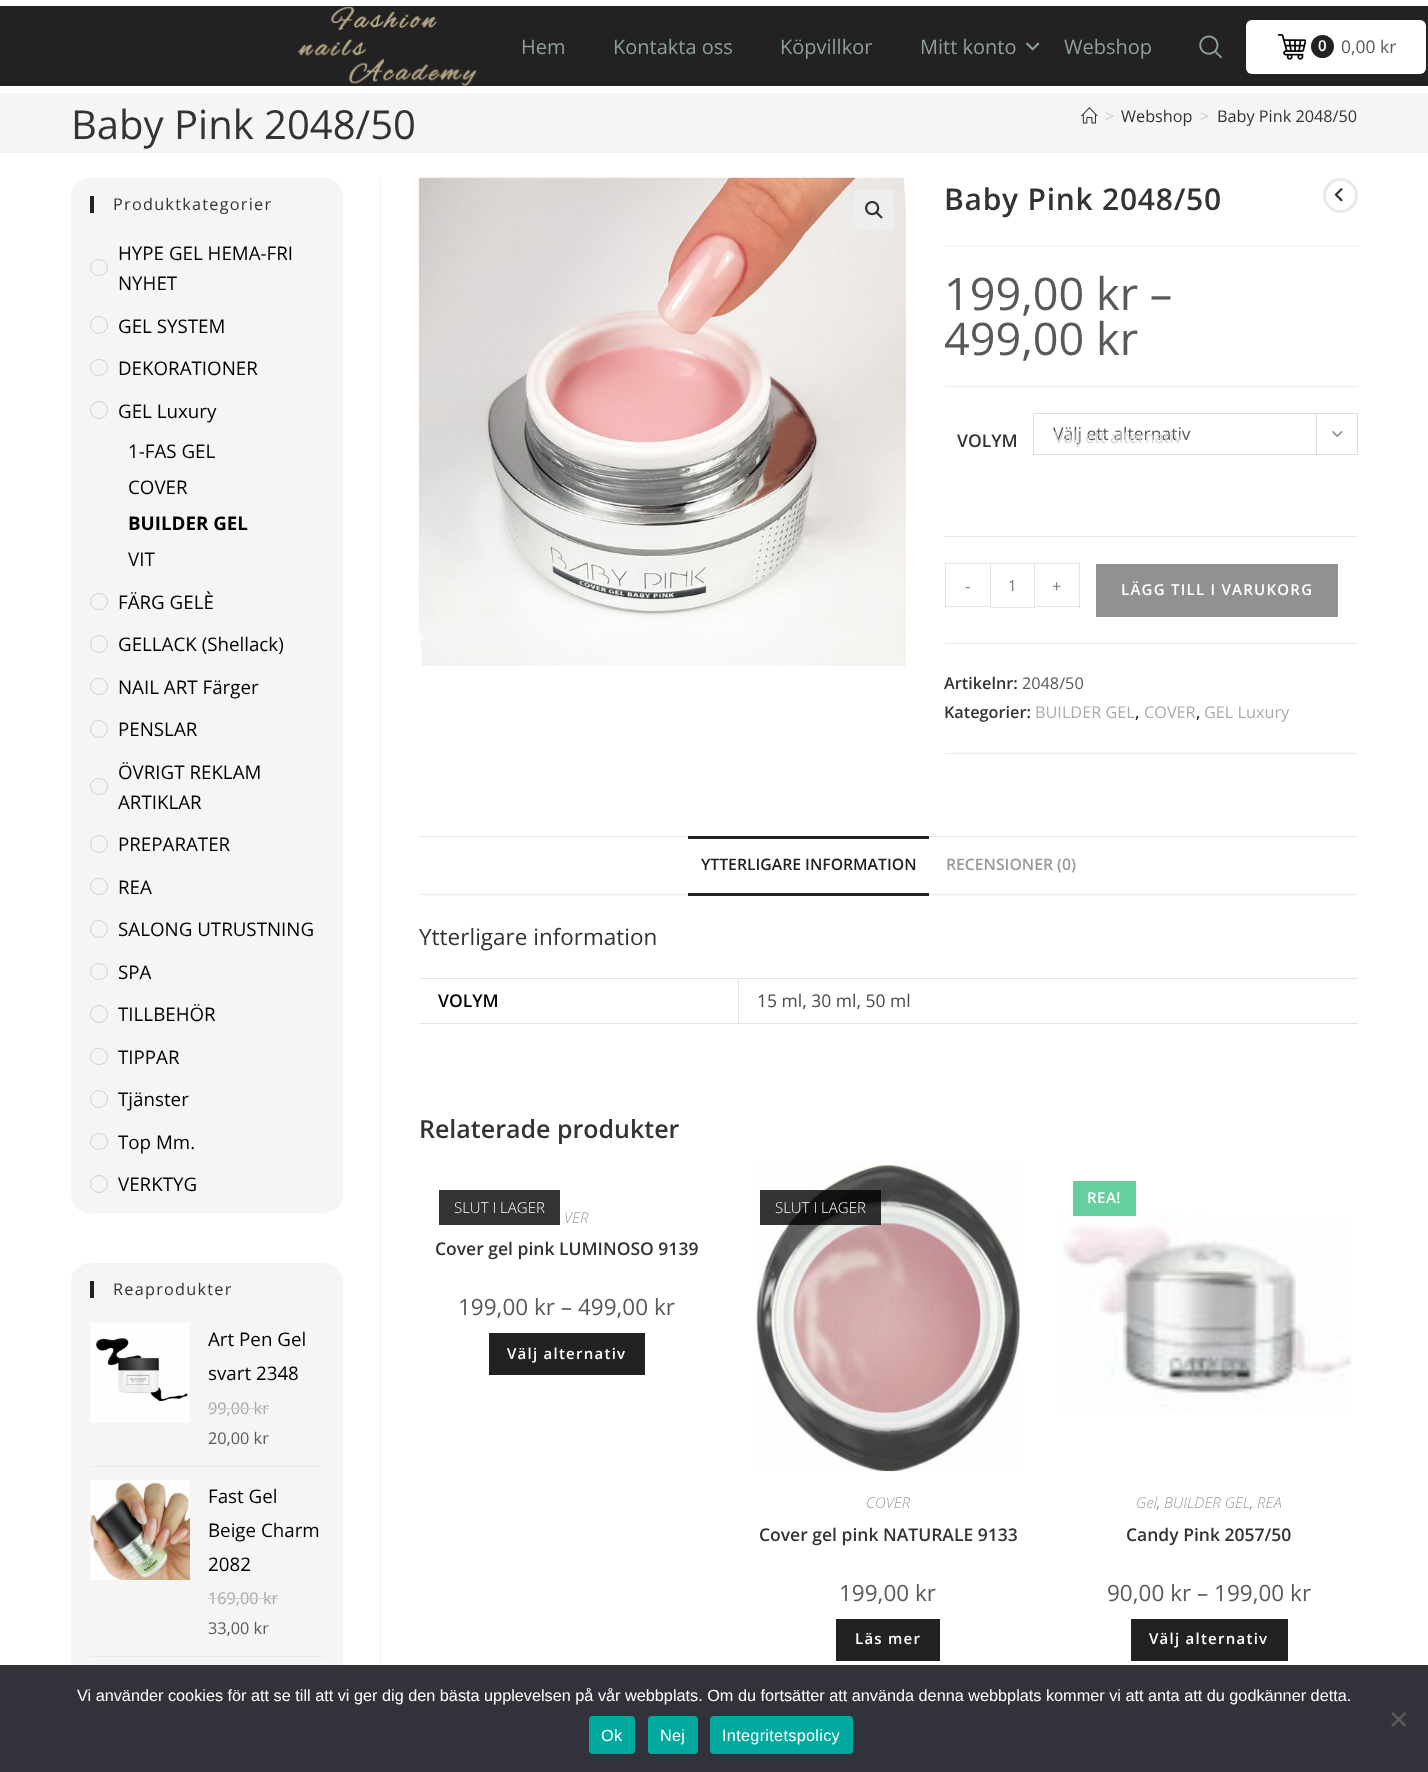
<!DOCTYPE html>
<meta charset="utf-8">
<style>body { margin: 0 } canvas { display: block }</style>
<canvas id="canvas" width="1428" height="1772"></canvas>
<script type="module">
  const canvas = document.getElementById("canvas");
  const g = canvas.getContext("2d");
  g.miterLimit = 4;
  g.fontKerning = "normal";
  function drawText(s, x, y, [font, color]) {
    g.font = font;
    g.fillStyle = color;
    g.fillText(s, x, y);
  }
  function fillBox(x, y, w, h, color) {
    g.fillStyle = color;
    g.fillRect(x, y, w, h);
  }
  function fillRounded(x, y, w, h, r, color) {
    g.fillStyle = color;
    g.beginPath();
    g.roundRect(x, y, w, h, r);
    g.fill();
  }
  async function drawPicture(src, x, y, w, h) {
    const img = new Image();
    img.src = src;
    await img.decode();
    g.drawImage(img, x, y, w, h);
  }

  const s1 = ["20px Open Sans", "#8E9D9D"];
  const s2 = ["600 15px Open Sans", "#FFFFFF"];
  const s3 = ["17.5px Open Sans", "#595959"];
  const s4 = ["40px Open Sans", "#333333"];
  const s5 = ["16.25px Open Sans", "#C6C6C6"];
  const s6 = ["16.25px Open Sans", "#333333"];
  const s7 = ["18.75px Open Sans", "#000000"];
  const s8 = ["bold 18.75px Open Sans", "#000000"];
  const s9 = ["16.25px Open Sans", "#A6A5A5"];
  const s10 = ["16.25px Open Sans", "#595959"];
  const s11 = ["600 30px Open Sans", "#333333"];
  const s12 = ["45px Open Sans", "#595959"];
  const s13 = ["600 17.5px Open Sans", "#333333"];
  const s14 = ["16.25px Open Sans", "#D4D4D4"];
  const s15 = ["16.25px Open Sans", "#777777"];
  const s16 = ["15px Open Sans", "#777777"];
  const s17 = ["600 16.25px Open Sans", "#333333"];
  const s18 = ["16.25px Open Sans", "#ABABAB"];
  const s19 = ["600 15.75px Open Sans", "#222222"];
  const s20 = ["600 15.75px Open Sans", "#999999"];
  const s21 = ["22.5px Open Sans", "#333333"];
  const s22 = ["600 17.5px Open Sans", "#000000"];
  const s23 = ["17.5px Open Sans", "#4A4A4A"];
  const s24 = ["600 25px Open Sans", "#333333"];
  const s25 = ["300 15px Open Sans", "#FFFFFF"];
  const s26 = ["italic 300 15px Open Sans", "#999999"];
  const s27 = ["22.5px Open Sans", "#595959"];
  const s28 = ["italic 300 15px Open Sans", "#4A4A4A"];
  const s29 = ["16.25px Liberation Sans", "#FFFFFF"];

  fillBox(0, 0, 1428, 1772, "#FFFFFF");
  fillBox(0, 6, 1428, 80, "#222222");
  await drawPicture("pic1.png", 298, 6, 179, 81);
  drawText("Hem", 521, 54, s1);
  drawText("Kontakta oss", 613, 54, s1);
  drawText("Köpvillkor", 780, 54, s1);
  drawText("Mitt konto", 920, 54, s1);
  await drawPicture("pic2.png", 1026, 42, 14, 9);
  drawText("Webshop", 1064, 54, s1);
  await drawPicture("pic3.png", 1199, 35, 23, 24);
  fillRounded(1246, 20, 180, 54, 6, "#FFFFFF");
  await drawPicture("pic4.png", 1278, 34, 28, 26);
  g.fillStyle = "#222222";
  g.beginPath();
  g.arc(1322.5, 46.5, 11.5, 0, Math.PI * 2);
  g.fill();
  drawText("0", 1318, 51, s2);
  drawText("0,00 kr", 1341, 53, s3);
  fillBox(0, 93, 1428, 60, "#F7F4F4");
  drawText("Baby Pink 2048/50", 71, 139, s4);
  await drawPicture("pic5.png", 1081, 107, 17, 17);
  drawText(">", 1105, 122, s5);
  drawText("Webshop", 1121, 122, s6);
  drawText(">", 1200, 122, s5);
  drawText("Baby Pink 2048/50", 1217, 122, s6);
  fillRounded(71, 178, 272, 1035, 19, "#F7F4F4");
  fillBox(90, 196, 4, 17, "#222222");
  g.letterSpacing = "1.25px";
  drawText("Produktkategorier", 113, 210, s6);
  g.letterSpacing = "0px";
  drawText("HYPE GEL HEMA-FRI", 118, 260, s7);
  g.beginPath();
  g.roundRect(90.5, 259.5, 17, 16, 8);
  g.strokeStyle = "#D2CFCF";
  g.stroke();
  drawText("NYHET", 118, 290, s7);
  g.beginPath();
  g.arc(99, 325, 8.5, 0, Math.PI * 2);
  g.stroke();
  drawText("GEL SYSTEM", 118, 333, s7);
  g.beginPath();
  g.roundRect(90.5, 359.5, 17, 16, 8);
  g.stroke();
  drawText("DEKORATIONER", 118, 375, s7);
  g.beginPath();
  g.arc(99, 410, 8.5, 0, Math.PI * 2);
  g.stroke();
  drawText("GEL Luxury", 118, 418, s7);
  drawText("1-FAS GEL", 128, 458, s7);
  drawText("COVER", 128, 494, s7);
  drawText("BUILDER GEL", 128, 530, s8);
  drawText("VIT", 128, 566, s7);
  g.beginPath();
  g.roundRect(90.5, 593.5, 17, 16, 8);
  g.stroke();
  drawText("FÄRG GELÈ", 118, 609, s7);
  g.beginPath();
  g.arc(99, 644, 8.5, 0, Math.PI * 2);
  g.stroke();
  drawText("GELLACK (Shellack)", 118, 651, s7);
  g.beginPath();
  g.roundRect(90.5, 678.5, 17, 16, 8);
  g.stroke();
  drawText("NAIL ART Färger", 118, 694, s7);
  g.beginPath();
  g.arc(99, 729, 8.5, 0, Math.PI * 2);
  g.stroke();
  drawText("PENSLAR", 118, 736, s7);
  drawText("ÖVRIGT REKLAM", 118, 779, s7);
  g.beginPath();
  g.roundRect(90.5, 778.5, 17, 16, 8);
  g.stroke();
  drawText("ARTIKLAR", 118, 809, s7);
  g.beginPath();
  g.arc(99, 844, 8.5, 0, Math.PI * 2);
  g.stroke();
  drawText("PREPARATER", 118, 851, s7);
  g.beginPath();
  g.roundRect(90.5, 878.5, 17, 16, 8);
  g.stroke();
  drawText("REA", 118, 894, s7);
  g.beginPath();
  g.arc(99, 929, 8.5, 0, Math.PI * 2);
  g.stroke();
  drawText("SALONG UTRUSTNING", 118, 936, s7);
  g.beginPath();
  g.roundRect(90.5, 963.5, 17, 16, 8);
  g.stroke();
  drawText("SPA", 118, 979, s7);
  g.beginPath();
  g.arc(99, 1014, 8.5, 0, Math.PI * 2);
  g.stroke();
  drawText("TILLBEHÖR", 118, 1021, s7);
  g.beginPath();
  g.roundRect(90.5, 1048.5, 17, 16, 8);
  g.stroke();
  drawText("TIPPAR", 118, 1064, s7);
  g.beginPath();
  g.arc(99, 1099, 8.5, 0, Math.PI * 2);
  g.stroke();
  drawText("Tjänster", 118, 1106, s7);
  g.beginPath();
  g.roundRect(90.5, 1133.5, 17, 16, 8);
  g.stroke();
  drawText("Top Mm.", 118, 1149, s7);
  g.beginPath();
  g.arc(99, 1184, 8.5, 0, Math.PI * 2);
  g.stroke();
  drawText("VERKTYG", 118, 1191, s7);
  fillRounded(71, 1263, 272, 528, 19, "#F7F4F4");
  fillBox(90, 1281, 4, 17, "#222222");
  g.letterSpacing = "1.25px";
  drawText("Reaprodukter", 113, 1295, s6);
  fillBox(90, 1466, 234, 1, "#EAEAEA");
  await drawPicture("pic6.png", 90, 1322, 100, 101);
  g.letterSpacing = "0px";
  drawText("Art Pen Gel", 208, 1346, s7);
  drawText("svart 2348", 208, 1380, s7);
  drawText("99,00 kr", 208, 1414, s9);
  fillBox(208, 1408, 61, 1, "#D1CFCF");
  drawText("20,00 kr", 208, 1444, s10);
  fillBox(90, 1656, 234, 1, "#EAEAEA");
  await drawPicture("pic7.png", 90, 1480, 100, 100);
  drawText("Fast Gel", 208, 1503, s7);
  drawText("Beige Charm", 208, 1537, s7);
  drawText("2082", 208, 1571, s7);
  drawText("169,00 kr", 208, 1604, s9);
  fillBox(208, 1598, 70, 1, "#D1CFCF");
  drawText("33,00 kr", 208, 1634, s10);
  fillBox(380, 178, 1, 1487, "#F1F1F1");
  await drawPicture("pic8.png", 418, 177, 488, 489);
  fillRounded(854, 190, 40, 40, 4, "#EEEEEE");
  await drawPicture("pic9.png", 865, 200, 18, 19);
  fillBox(945, 245, 413, 1, "#F1F1F1");
  g.letterSpacing = "0.75px";
  drawText("Baby Pink 2048/50", 944, 210, s11);
  g.letterSpacing = "0px";
  drawText("199,00 kr –", 944, 310, s12);
  drawText("499,00 kr", 944, 355, s12);
  fillBox(945, 386, 413, 1, "#EAEAEA");
  fillBox(945, 643, 413, 1, "#EAEAEA");
  drawText("VOLYM", 957, 447, s13);
  fillBox(944, 536, 414, 1, "#E9E9E9");
  g.strokeStyle = "#DDDDDD";
  g.strokeRect(1033.5, 413.5, 324, 41);
  drawText("Välj ett alternativ", 1053, 440, s3);
  fillBox(1316, 414, 1, 40, "#DDDDDD");
  await drawPicture("pic10.png", 1332, 431, 11, 6);
  drawText("Välj ett alternativ", 1054, 443, s14);
  fillBox(945, 563, 45, 1, "#E4E4E4");
  fillBox(945, 606, 45, 1, "#E4E4E4");
  fillBox(945, 563, 1, 45, "#E4E4E4");
  drawText("-", 965, 592, s15);
  g.strokeStyle = "#E4E4E4";
  g.strokeRect(990.5, 563.5, 44, 44);
  drawText("1", 1008, 591, s16);
  fillBox(1035, 563, 45, 1, "#E4E4E4");
  fillBox(1079, 563, 1, 45, "#E4E4E4");
  fillBox(1035, 606, 45, 1, "#E4E4E4");
  drawText("+", 1052, 592, s15);
  fillBox(1096, 564, 242, 53, "#919191");
  g.letterSpacing = "1.25px";
  drawText("LÄGG TILL I VARUKORG", 1121, 595, s2);
  fillBox(945, 753, 413, 1, "#EAEAEA");
  g.letterSpacing = "0px";
  drawText("Artikelnr:", 944, 689, s17);
  drawText("2048/50", 1022, 689, s10);
  drawText("Kategorier:", 944, 718, s17);
  drawText("BUILDER GEL", 1035, 718, s18);
  drawText(",", 1135, 718, s17);
  drawText("COVER", 1144, 718, s18);
  drawText(",", 1196, 718, s17);
  drawText("GEL Luxury", 1204, 718, s18);
  g.beginPath();
  g.arc(1340.5, 195.5, 16, 0, Math.PI * 2);
  g.strokeStyle = "#E9E9E9";
  g.lineWidth = 3;
  g.stroke();
  await drawPicture("pic11.png", 1334, 188, 9, 14);
  fillBox(419, 836, 939, 1, "#EAEAEA");
  fillBox(419, 894, 939, 1, "#EAEAEA");
  fillBox(688, 836, 241, 3, "#222222");
  fillBox(688, 893, 241, 3, "#222222");
  drawText("YTTERLIGARE INFORMATION", 701, 870, s19);
  drawText("RECENSIONER (0)", 946, 870, s20);
  drawText("Ytterligare information", 419, 945, s21);
  fillBox(419, 978, 939, 1, "#E4E4E4");
  fillBox(738, 1023, 620, 1, "#E4E4E4");
  fillBox(738, 978, 1, 46, "#E4E4E4");
  fillBox(419, 1023, 320, 1, "#E4E4E4");
  drawText("VOLYM", 438, 1007, s22);
  drawText("15 ml, 30 ml, 50 ml", 757, 1007, s23);
  drawText("Relaterade produkter", 419, 1138, s24);
  fillBox(439, 1190, 121, 35, "rgba(0, 0, 0, 0.8)");
  drawText("SLUT I LAGER", 454, 1213, s25);
  drawText("VER", 564, 1223, s26);
  drawText("Cover gel pink LUMINOSO 9139", 435, 1255, s13);
  drawText("199,00 kr – 499,00 kr", 458, 1315, s27);
  fillBox(489, 1333, 156, 42, "#222222");
  g.letterSpacing = "1.25px";
  drawText("Välj alternativ", 507, 1359, s2);
  await drawPicture("pic12.png", 752, 1165, 269, 307);
  fillBox(760, 1190, 121, 35, "rgba(0, 0, 0, 0.8)");
  g.letterSpacing = "0px";
  drawText("SLUT I LAGER", 775, 1213, s25);
  drawText("COVER", 866, 1508, s26);
  drawText("Cover gel pink NATURALE 9133", 759, 1541, s13);
  drawText("199,00 kr", 839, 1601, s27);
  fillBox(836, 1619, 104, 42, "#222222");
  g.letterSpacing = "1.25px";
  drawText("Läs mer", 855, 1644, s2);
  await drawPicture("pic13.png", 1058, 1215, 294, 195);
  fillBox(1073, 1181, 63, 35, "rgba(63, 195, 135, 0.8)");
  g.letterSpacing = "0.5px";
  drawText("REA!", 1087, 1203, s2);
  g.letterSpacing = "0px";
  drawText("Gel", 1136, 1508, s26);
  drawText("BUILDER GEL", 1164, 1508, s26);
  drawText("REA", 1257, 1508, s26);
  drawText(",", 1157, 1508, s28);
  drawText(",", 1250, 1508, s28);
  drawText("Candy Pink 2057/50", 1126, 1541, s13);
  drawText("90,00 kr – 199,00 kr", 1107, 1601, s27);
  fillBox(1131, 1619, 157, 42, "#222222");
  g.letterSpacing = "1.25px";
  drawText("Välj alternativ", 1149, 1644, s2);
  fillBox(0, 1665, 1428, 107, "#32323A");
  g.letterSpacing = "0px";
  drawText("Vi använder cookies för att se till att vi ger dig den bästa upplevelsen på vår webbplats. Om du fortsätter att använda denna webbplats kommer vi att anta att du godkänner detta.", 77, 1701, s29);
  g.fillStyle = "#59595D";
  g.beginPath();
  g.moveTo(1404.5, 1712);
  g.lineTo(1406.5, 1713.5);
  g.lineTo(1393, 1727);
  g.lineTo(1391, 1725);
  g.closePath();
  g.fill();
  g.beginPath();
  g.moveTo(1391, 1713.5);
  g.lineTo(1393, 1712);
  g.lineTo(1406.5, 1725);
  g.lineTo(1404.5, 1727);
  g.closePath();
  g.fill();
  fillRounded(589, 1716, 46, 38, 4, "#00A99D");
  g.letterSpacing = "0.3px";
  drawText("Ok", 601, 1741, s29);
  fillRounded(648, 1716, 50, 38, 4, "#00A99D");
  drawText("Nej", 660, 1741, s29);
  fillRounded(710, 1716, 143, 38, 4, "#00A99D");
  drawText("Integritetspolicy", 722, 1741, s29);
</script>
